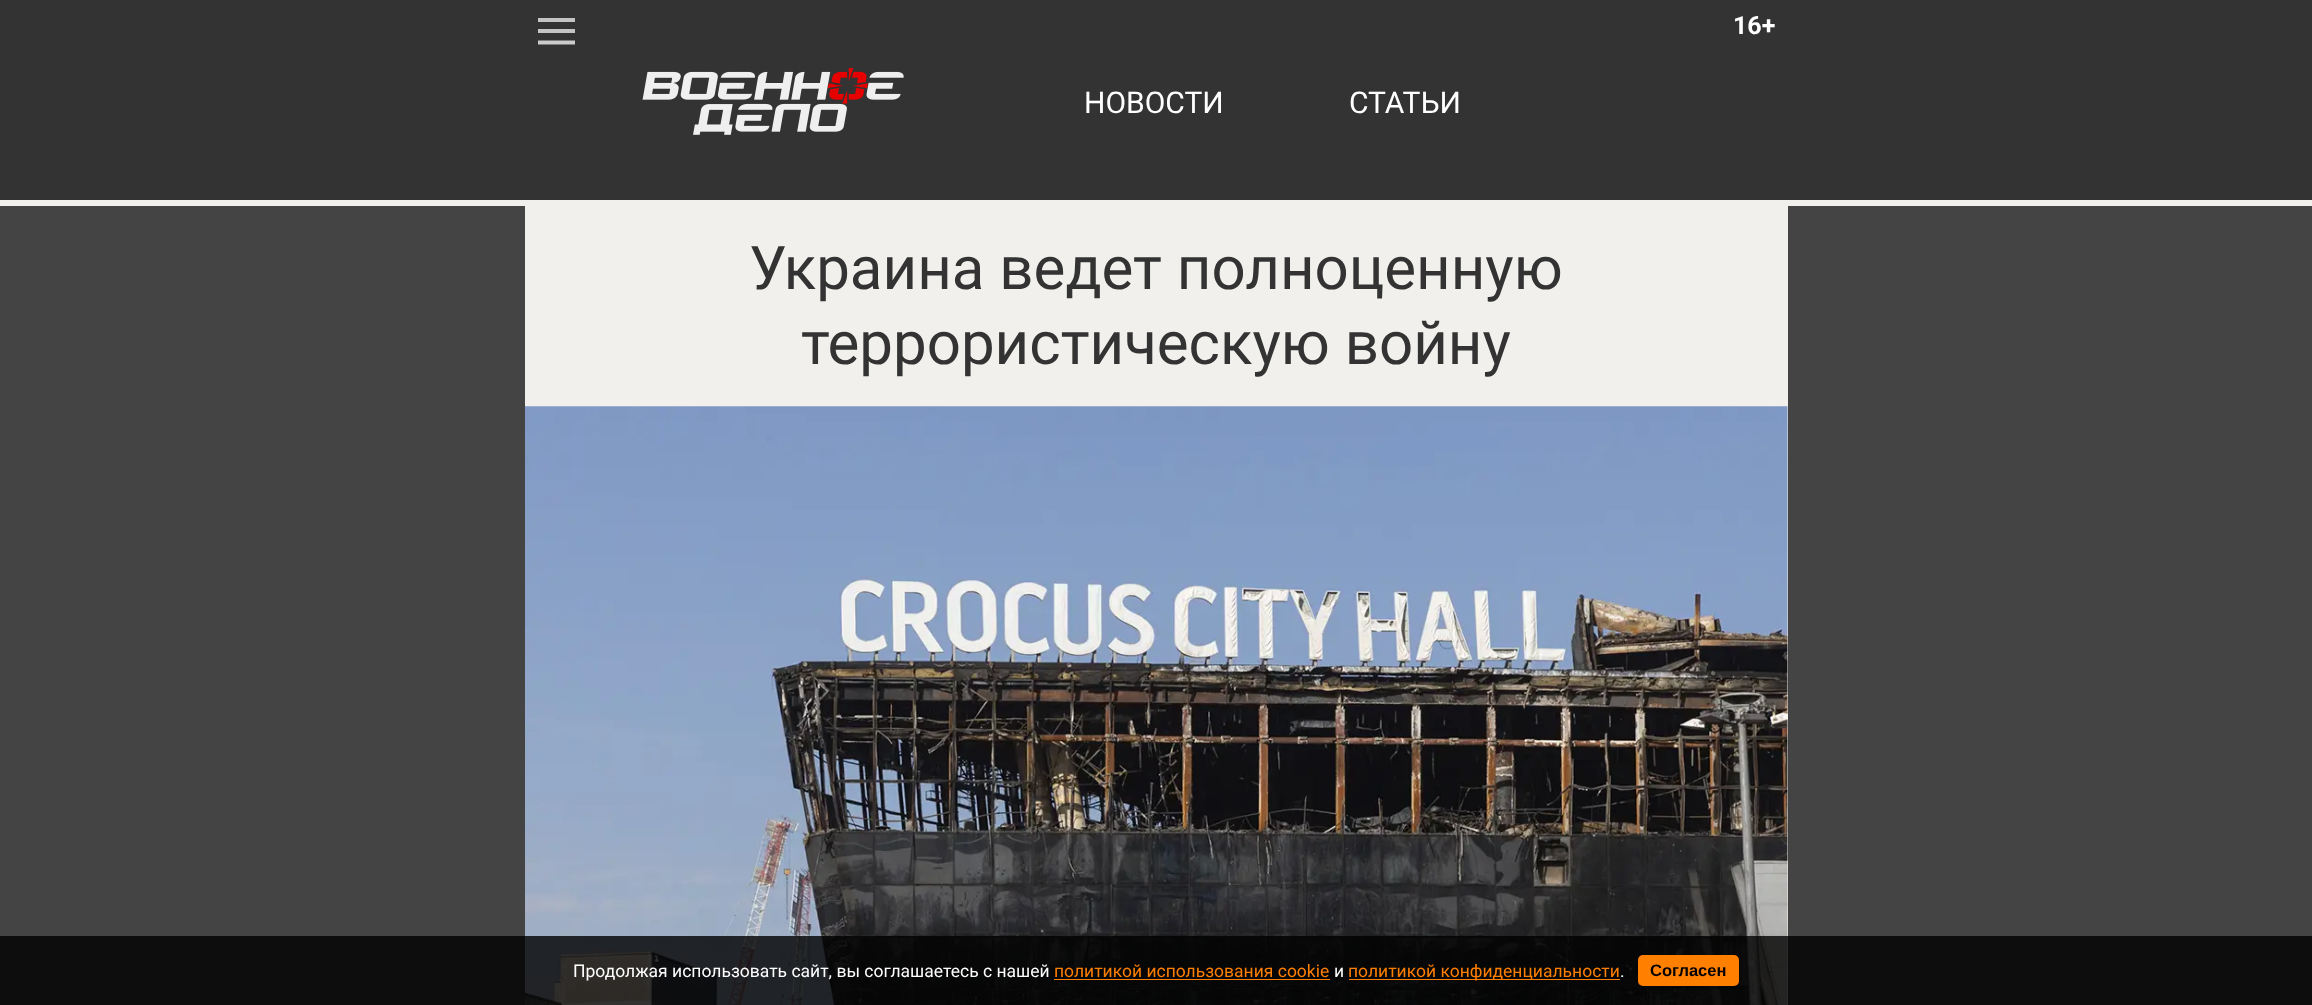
<!DOCTYPE html>
<meta charset="utf-8">
<style>body { margin: 0 } canvas { display: block }</style>
<canvas id="canvas" width="2312" height="1005"></canvas>
<script type="module">
  const canvas = document.getElementById("canvas");
  const g = canvas.getContext("2d");
  g.miterLimit = 4;
  g.fontKerning = "normal";
  function drawText(s, x, y, [font, color]) {
    g.font = font;
    g.fillStyle = color;
    g.fillText(s, x, y);
  }
  function fillBox(x, y, w, h, color) {
    g.fillStyle = color;
    g.fillRect(x, y, w, h);
  }
  function fillRounded(x, y, w, h, r, color) {
    g.fillStyle = color;
    g.beginPath();
    g.roundRect(x, y, w, h, r);
    g.fill();
  }
  async function drawPicture(src, x, y, w, h) {
    const img = new Image();
    img.src = src;
    await img.decode();
    g.drawImage(img, x, y, w, h);
  }

  const s1 = ["bold 25px Roboto", "#FFFFFF"];
  const s2 = ["30px Roboto", "#FFFFFF"];
  const s3 = ["60px Roboto", "#333333"];
  const s4 = ["17.5px Roboto", "#FFFFFF"];
  const s5 = ["17.5px Roboto", "#FF7F00"];
  const s6 = ["bold 16.5px Liberation Sans", "#000000"];

  fillBox(0, 0, 2312, 1005, "#444444");
  fillBox(0, 0, 2312, 200, "#333333");
  fillBox(538, 29, 37, 4, "#C4C4C4");
  fillBox(538, 18, 37, 4, "#C4C4C4");
  g.save();
  g.beginPath();
  g.rect(538, 13, 37, 37);
  g.clip();
  g.beginPath();
  g.moveTo(537.5, 42.5);
  g.lineTo(575, 42.5);
  g.strokeStyle = "#CCCCCC";
  g.lineWidth = 3.8;
  g.stroke();
  g.restore();
  drawText("16+", 1733, 34, s1);
  await drawPicture("pic1.png", 642, 68, 262, 67);
  drawText("НОВОСТИ", 1084, 113, s2);
  drawText("СТАТЬИ", 1349, 113, s2);
  fillBox(0, 200, 2312, 6, "#F1F0ED");
  fillBox(525, 206, 1263, 799, "#F1F0ED");
  drawText("Украина ведет полноценную", 749, 289, s3);
  drawText("террористическую войну", 801, 364, s3);
  await drawPicture("pic2.png", 525, 406, 1263, 599);
  fillBox(0, 936, 2312, 69, "rgba(0, 0, 0, 0.8)");
  drawText("Продолжая использовать сайт, вы соглашаетесь с нашей", 573, 977, s4);
  drawText("политикой использования cookie", 1054, 977, s5);
  fillBox(1054, 979, 276, 1, "#FF7F00");
  drawText("и", 1334, 977, s4);
  fillBox(1349, 979, 271, 1, "#FF7F00");
  drawText("политикой конфиденциальности", 1348, 977, s5);
  drawText(".", 1620, 977, s4);
  fillRounded(1638, 955, 101, 31, 5, "#FF7F00");
  drawText("Согласен", 1650, 976, s6);
</script>
